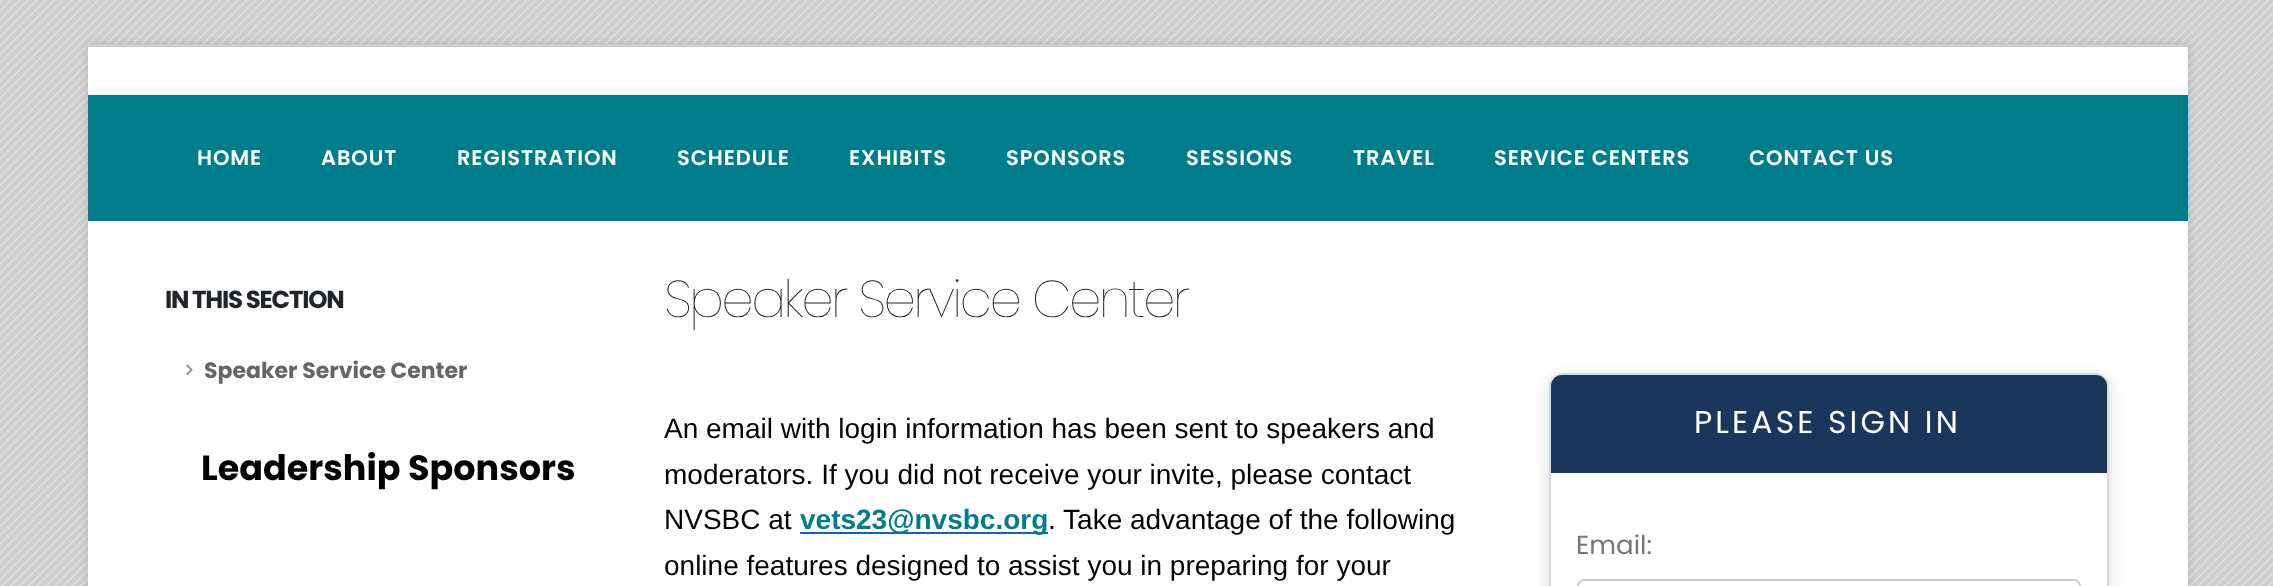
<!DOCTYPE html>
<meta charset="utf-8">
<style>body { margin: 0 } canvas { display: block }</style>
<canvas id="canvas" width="2273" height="586"></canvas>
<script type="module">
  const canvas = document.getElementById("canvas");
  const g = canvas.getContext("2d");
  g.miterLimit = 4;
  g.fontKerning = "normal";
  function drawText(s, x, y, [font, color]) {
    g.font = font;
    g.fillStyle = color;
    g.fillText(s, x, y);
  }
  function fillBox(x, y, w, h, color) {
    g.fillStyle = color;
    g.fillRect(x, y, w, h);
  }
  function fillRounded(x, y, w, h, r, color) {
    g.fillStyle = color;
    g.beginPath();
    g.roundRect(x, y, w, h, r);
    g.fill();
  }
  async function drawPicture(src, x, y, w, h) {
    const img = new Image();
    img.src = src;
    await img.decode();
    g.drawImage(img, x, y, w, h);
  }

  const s1 = ["600 21px Poppins", "#FFFFFF"];
  const s2 = ["bold 24.5px Poppins", "#212529"];
  const s3 = ["bold 22px Poppins", "#666666"];
  const s4 = ["bold 35px Poppins", "#000000"];
  const s5 = ["200 51.75px Poppins", "#212529"];
  const s6 = ["28px Liberation Sans", "#000000"];
  const s7 = ["bold 28px Liberation Sans", "#007D8A"];
  const s8 = ["31.5px Poppins", "#FFFFFF"];
  const s9 = ["26px Poppins", "#777777"];

  fillBox(0, 0, 2273, 586, "#FFFFFF");
  await drawPicture("pic1.png", 0, 0, 2273, 586);
  g.fillStyle = "rgba(0, 0, 0, 0.15)";
  g.filter = "blur(3.5px)";
  g.beginPath();
  g.roundRect(88, 44, 2100, 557, 4);
  g.fill();
  g.filter = "none";
  await drawPicture("pic2.png", 87, 44, 2101, 542);
  fillBox(89, 44, 2097, 3, "#CCCCCC");
  fillBox(88, 47, 2100, 539, "#FFFFFF");
  fillBox(88, 95, 2100, 126, "#007D8A");
  g.letterSpacing = "0.9px";
  drawText("HOME", 197, 165, s1);
  drawText("ABOUT", 321, 165, s1);
  drawText("REGISTRATION", 457, 165, s1);
  drawText("SCHEDULE", 677, 165, s1);
  drawText("EXHIBITS", 849, 165, s1);
  drawText("SPONSORS", 1006, 165, s1);
  drawText("SESSIONS", 1186, 165, s1);
  drawText("TRAVEL", 1353, 165, s1);
  drawText("SERVICE CENTERS", 1494, 165, s1);
  drawText("CONTACT US", 1749, 165, s1);
  g.letterSpacing = "-1.25px";
  drawText("IN THIS SECTION", 165, 308, s2);
  await drawPicture("pic3.png", 186, 364, 7, 12);
  g.letterSpacing = "0px";
  drawText("Speaker Service Center", 204, 378, s3);
  drawText("Leadership Sponsors", 201, 480, s4);
  g.letterSpacing = "-2.6px";
  drawText("Speaker Service Center", 664, 317, s5);
  g.letterSpacing = "0px";
  drawText("An email with login information has been sent to speakers and", 664, 438, s6);
  drawText("moderators. If you did not receive your invite, please contact", 664, 484, s6);
  drawText("NVSBC at", 664, 529, s6);
  fillBox(800, 532, 248, 2, "#1961AE");
  drawText("vets23@nvsbc.org", 800, 529, s7);
  drawText(". Take advantage of the following", 1048, 529, s6);
  drawText("online features designed to assist you in preparing for your", 664, 575, s6);
  g.fillStyle = "rgba(0, 0, 0, 0.15)";
  g.filter = "blur(8px)";
  g.beginPath();
  g.roundRect(1549, 378, 560, 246, 14);
  g.fill();
  g.filter = "none";
  fillRounded(1549, 373, 560, 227, 14, "#FFFFFF");
  g.beginPath();
  g.roundRect(1550, 374, 558, 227, 13);
  g.strokeStyle = "rgba(0, 0, 0, 0.15)";
  g.lineWidth = 2;
  g.stroke();
  g.fillStyle = "#1B365D";
  g.beginPath();
  g.roundRect(1551, 375, 556, 98, [11, 11, 0, 0]);
  g.fill();
  g.letterSpacing = "3.1px";
  drawText("PLEASE SIGN IN", 1694, 433, s8);
  g.letterSpacing = "0px";
  drawText("Email:", 1576, 554, s9);
  g.beginPath();
  g.roundRect(1578, 580, 502, 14, 6);
  g.strokeStyle = "#CCCCCC";
  g.stroke();
</script>
